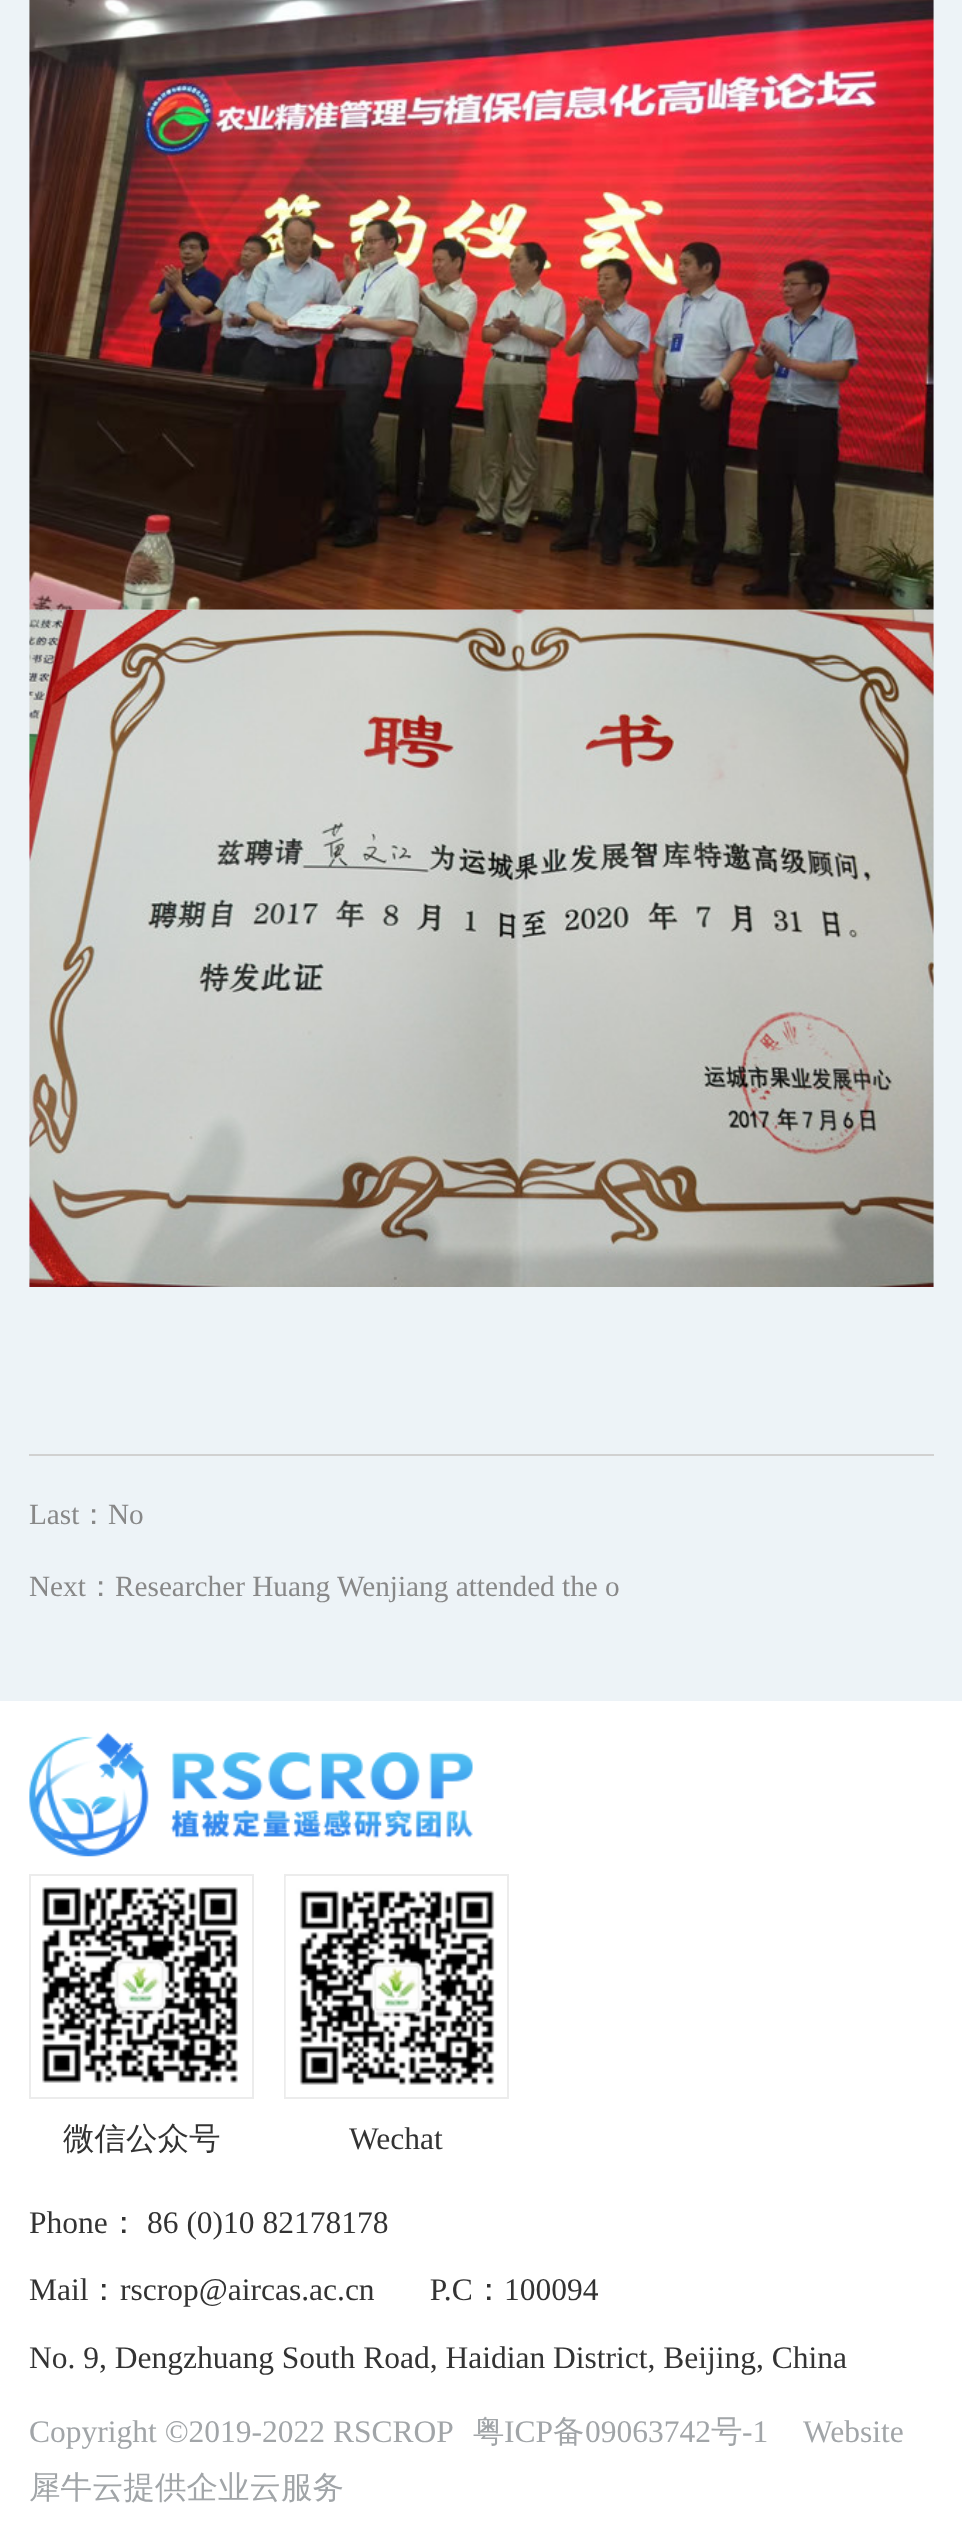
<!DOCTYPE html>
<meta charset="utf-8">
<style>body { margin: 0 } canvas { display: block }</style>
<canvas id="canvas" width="962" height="2546"></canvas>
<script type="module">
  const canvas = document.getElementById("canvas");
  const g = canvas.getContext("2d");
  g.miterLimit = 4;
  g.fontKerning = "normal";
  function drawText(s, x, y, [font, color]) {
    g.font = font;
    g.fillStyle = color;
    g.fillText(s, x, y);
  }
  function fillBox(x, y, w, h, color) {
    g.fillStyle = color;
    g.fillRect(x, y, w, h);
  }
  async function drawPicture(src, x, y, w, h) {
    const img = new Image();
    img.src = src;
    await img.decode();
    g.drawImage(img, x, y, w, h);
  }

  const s1 = ["29.25px Liberation Serif", "#888888"];
  const s2 = ["500 29.25px WenQuanYi Zen Hei", "#888888"];
  const s3 = ["500 31.5px WenQuanYi Zen Hei", "#333333"];
  const s4 = ["31.5px Liberation Serif", "#333333"];
  const s5 = ["31.5px Liberation Serif", "#A1A5A8"];
  const s6 = ["500 31.5px WenQuanYi Zen Hei", "#A1A5A8"];

  fillBox(0, 0, 962, 2546, "#FFFFFF");
  fillBox(0, 0, 962, 1701, "#EDF3F7");
  fillBox(29, 1454, 905, 2, "#D1D1D1");
  await drawPicture("pic1.png", 29, 0, 905, 610);
  await drawPicture("pic2.png", 29, 609, 905, 678);
  drawText("Last", 29, 1524, s1);
  drawText("：", 79, 1524, s2);
  drawText("No", 108, 1524, s1);
  drawText("Next", 29, 1596, s1);
  drawText("：", 86, 1596, s2);
  drawText("Researcher Huang Wenjiang attended the o", 115, 1596, s1);
  await drawPicture("pic3.png", 29, 1732, 444, 125);
  g.strokeStyle = "#ECECEC";
  g.lineWidth = 2;
  g.strokeRect(30, 1875, 223, 223);
  await drawPicture("pic4.png", 42, 1887, 196, 196);
  drawText("微信公众号", 63, 2149, s3);
  g.strokeRect(285, 1875, 223, 223);
  await drawPicture("pic5.png", 285, 1877, 210, 220);
  drawText("Wechat", 349, 2149, s4);
  drawText("Phone", 29, 2233, s4);
  drawText("：", 108, 2233, s3);
  drawText("86 (0)10 82178178", 147, 2233, s4);
  drawText("Mail", 29, 2300, s4);
  drawText("：", 88, 2300, s3);
  drawText("rscrop@aircas.ac.cn       P.C", 120, 2300, s4);
  drawText("：", 473, 2300, s3);
  drawText("100094", 504, 2300, s4);
  drawText("No. 9, Dengzhuang South Road, Haidian District, Beijing, China", 29, 2368, s4);
  drawText("Copyright ©2019-2022 RSCROP", 29, 2442, s5);
  drawText("粤", 473, 2442, s6);
  drawText("ICP", 504, 2442, s5);
  drawText("备", 553, 2442, s6);
  drawText("09063742", 585, 2442, s5);
  drawText("号", 711, 2442, s6);
  drawText("-1", 742, 2442, s5);
  drawText("Website", 803, 2442, s5);
  drawText("犀牛云提供企业云服务", 29, 2498, s6);
</script>
